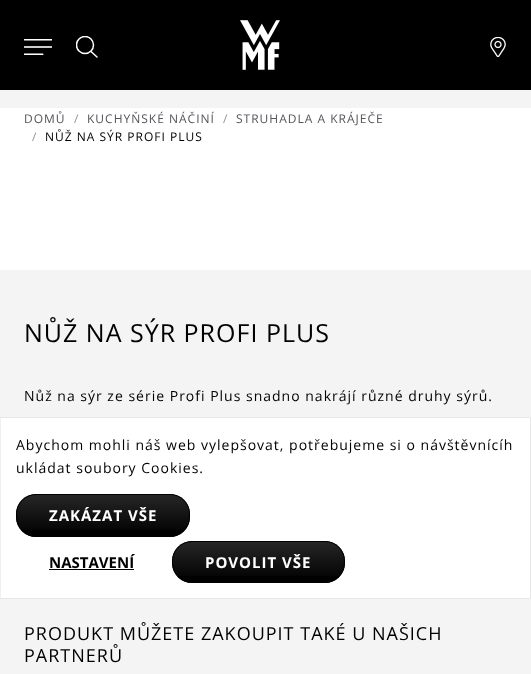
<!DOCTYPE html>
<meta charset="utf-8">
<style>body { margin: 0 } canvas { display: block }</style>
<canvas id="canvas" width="531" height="674"></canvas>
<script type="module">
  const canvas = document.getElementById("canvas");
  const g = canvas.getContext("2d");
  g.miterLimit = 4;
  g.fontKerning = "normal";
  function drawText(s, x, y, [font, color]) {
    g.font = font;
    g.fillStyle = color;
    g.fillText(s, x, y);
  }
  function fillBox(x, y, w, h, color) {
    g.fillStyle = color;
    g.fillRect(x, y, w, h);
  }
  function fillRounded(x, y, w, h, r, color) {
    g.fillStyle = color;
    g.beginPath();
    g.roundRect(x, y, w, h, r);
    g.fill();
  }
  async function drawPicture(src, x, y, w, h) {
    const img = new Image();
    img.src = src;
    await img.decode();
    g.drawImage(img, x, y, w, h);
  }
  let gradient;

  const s1 = ["12px Open Sans", "#53555A"];
  const s2 = ["12px Open Sans", "#919191"];
  const s3 = ["12px Open Sans", "#000000"];
  const s4 = ["25px Open Sans", "#000000"];
  const s5 = ["14px Open Sans", "#000000"];
  const s6 = ["18px Open Sans", "#000000"];
  const s7 = ["bold 15px Open Sans", "#FFFFFF"];
  const s8 = ["bold 15px Open Sans", "#000000"];

  fillBox(0, 0, 531, 674, "#F4F4F4");
  fillBox(0, 0, 531, 90, "#000000");
  await drawPicture("pic1.png", 24, 39, 28, 16);
  g.save();
  g.beginPath();
  g.rect(76, 36, 24, 24);
  g.clip();
  g.beginPath();
  g.arc(85, 45, 8.5, 0, Math.PI * 2);
  g.strokeStyle = "#FFFFFF";
  g.lineWidth = 1.5;
  g.stroke();
  g.restore();
  g.beginPath();
  g.moveTo(91, 51.5);
  g.lineTo(97, 57);
  g.strokeStyle = "#FFFFFF";
  g.lineWidth = 1.5;
  g.lineCap = "round";
  g.stroke();
  await drawPicture("pic2.png", 240, 20, 40, 50);
  await drawPicture("pic3.png", 490, 37, 16, 20);
  fillBox(0, 108, 531, 162, "#FFFFFF");
  g.letterSpacing = "1px";
  drawText("DOMŮ", 24, 123, s1);
  drawText("/", 74, 123, s2);
  drawText("KUCHYŇSKÉ NÁČINÍ", 87, 123, s1);
  drawText("/", 223, 123, s2);
  drawText("STRUHADLA A KRÁJEČE", 236, 123, s1);
  drawText("/", 32, 141, s2);
  drawText("NŮŽ NA SÝR PROFI PLUS", 45, 141, s3);
  drawText("NŮŽ NA SÝR PROFI PLUS", 24, 342, s4);
  drawText("Nůž na sýr ze série Profi Plus snadno nakrájí různé druhy sýrů.", 24, 401, s5);
  drawText("PRODUKT MŮŽETE ZAKOUPIT TAKÉ U NAŠICH", 24, 640, s6);
  drawText("PARTNERŮ", 24, 662, s6);
  g.fillStyle = "#FFFFFF";
  g.beginPath();
  g.rect(0.5, 417.5, 530, 181);
  g.fill();
  g.strokeStyle = "#E7E7E7";
  g.lineWidth = 1;
  g.stroke();
  drawText("Abychom mohli náš web vylepšovat, potřebujeme si o návštěvnícíh", 16, 450, s5);
  drawText("ukládat soubory Cookies.", 16, 473, s5);
  fillRounded(16, 494, 174, 43, 20, "#000000");
  g.save();
  g.beginPath();
  g.roundRect(16, 494, 174, 43, 20);
  g.clip();
  gradient = g.createLinearGradient(103, 495, 103, 536);
  gradient.addColorStop(0, "rgba(255, 255, 255, 0.15)");
  gradient.addColorStop(1, "rgba(255, 255, 255, 0)");
  g.fillStyle = gradient;
  g.fillRect(16, 495, 174, 35);
  g.restore();
  g.beginPath();
  g.roundRect(16.5, 494.5, 173, 42, 19.5);
  g.strokeStyle = "#000000";
  g.stroke();
  drawText("ZAKÁZAT VŠE", 49, 521, s7);
  g.letterSpacing = "0px";
  drawText("NASTAVENÍ", 49, 568, s8);
  fillBox(49, 569, 85, 1, "#000000");
  fillRounded(172, 541, 173, 42, 20, "#000000");
  g.save();
  g.beginPath();
  g.roundRect(172, 541, 173, 42, 20);
  g.clip();
  gradient = g.createLinearGradient(259, 542, 259, 582);
  gradient.addColorStop(0, "rgba(255, 255, 255, 0.15)");
  gradient.addColorStop(1, "rgba(255, 255, 255, 0)");
  g.fillStyle = gradient;
  g.fillRect(172, 542, 173, 34);
  g.restore();
  g.beginPath();
  g.roundRect(172.5, 541.5, 172, 41, 19.5);
  g.stroke();
  g.letterSpacing = "1px";
  drawText("POVOLIT VŠE", 205, 568, s7);
</script>
